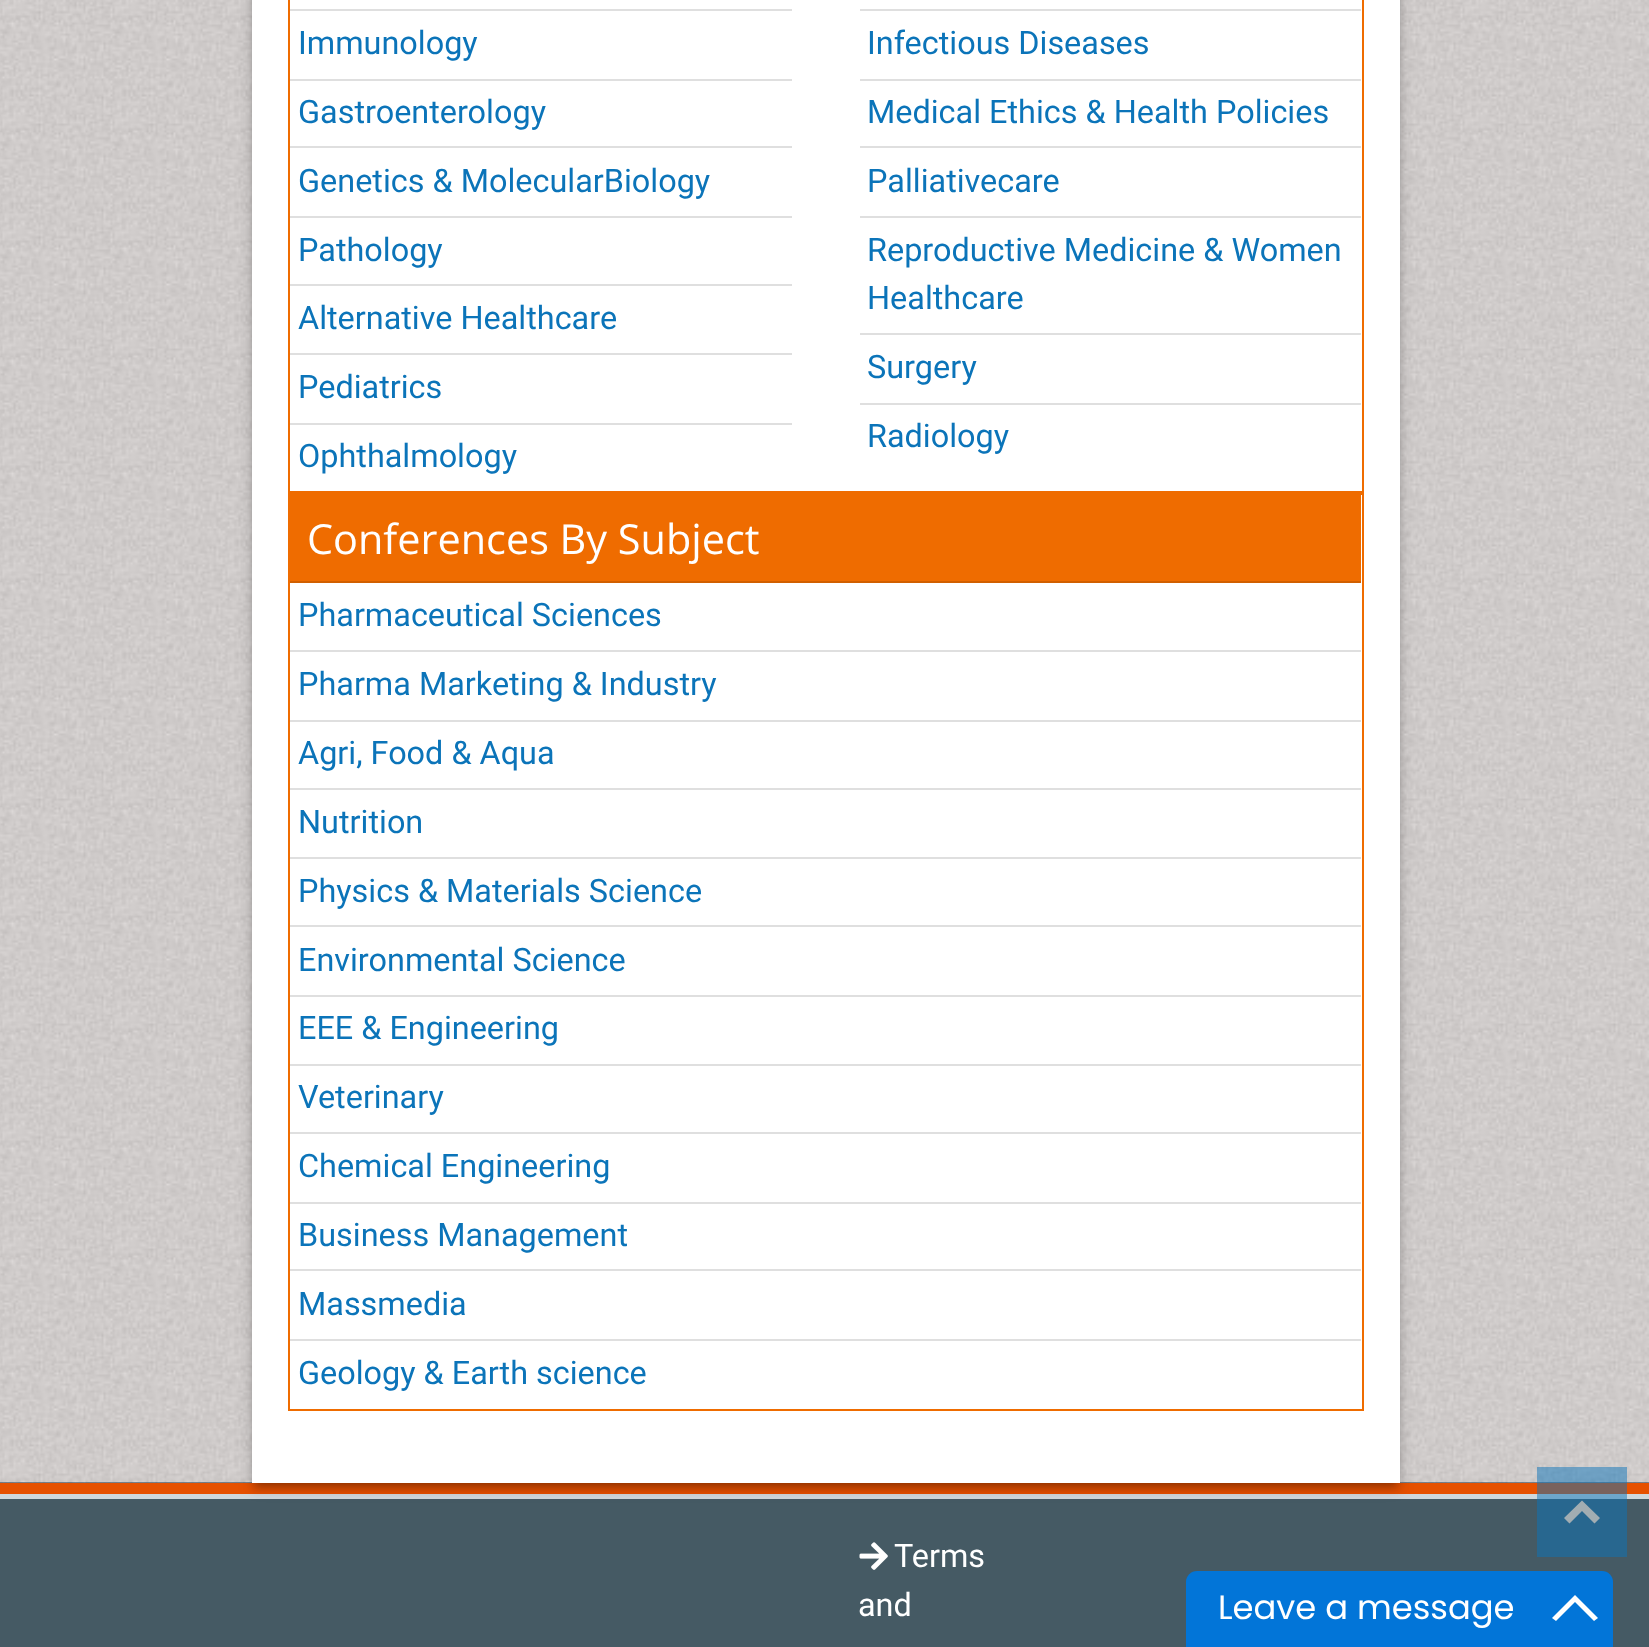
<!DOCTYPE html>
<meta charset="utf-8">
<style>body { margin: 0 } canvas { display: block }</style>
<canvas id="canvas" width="1649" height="1647"></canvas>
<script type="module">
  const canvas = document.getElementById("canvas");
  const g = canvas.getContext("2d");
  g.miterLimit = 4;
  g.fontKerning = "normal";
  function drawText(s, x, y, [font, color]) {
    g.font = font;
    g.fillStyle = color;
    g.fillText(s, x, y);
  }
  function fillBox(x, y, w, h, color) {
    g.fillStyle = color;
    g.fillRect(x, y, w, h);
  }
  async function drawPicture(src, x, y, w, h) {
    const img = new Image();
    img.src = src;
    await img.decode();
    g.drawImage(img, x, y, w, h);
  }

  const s1 = ["32.4px Roboto", "#0B74B9"];
  const s2 = ["41.4px Open Sans", "#FFFFFF"];
  const s3 = ["32.4px Roboto", "#FFFFFF"];
  const s4 = ["33.75px Poppins", "#FFFFFF"];

  fillBox(0, 0, 1649, 1647, "#FFFFFF");
  await drawPicture("pic1.png", 0, 0, 1649, 1483);
  await drawPicture("pic2.png", 0, 1482, 1649, 1);
  fillBox(0, 1483, 1649, 11, "#E65100");
  fillBox(0, 1499, 1649, 148, "#455A64");
  fillBox(0, 1494, 1649, 5, "#CFD8DC");
  g.fillStyle = "rgba(0, 0, 0, 0.12)";
  g.filter = "blur(9px)";
  g.beginPath();
  g.rect(252, -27, 1148, 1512);
  g.fill();
  g.filter = "none";
  g.fillStyle = "rgba(0, 0, 0, 0.14)";
  g.filter = "blur(4.5px)";
  g.beginPath();
  g.rect(252, -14, 1148, 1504);
  g.fill();
  g.filter = "none";
  g.fillStyle = "rgba(0, 0, 0, 0.2)";
  g.filter = "blur(3.5px)";
  g.beginPath();
  g.rect(257, -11, 1138, 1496);
  g.fill();
  g.filter = "none";
  fillBox(252, 0, 1148, 1483, "#FFFFFF");
  g.strokeStyle = "#EF6C00";
  g.lineWidth = 2;
  g.strokeRect(289, -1, 1074, 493);
  fillBox(290, 9, 502, 2, "#DFDFDF");
  drawText("Immunology", 298, 54, s1);
  fillBox(290, 79, 502, 2, "#DFDFDF");
  drawText("Gastroenterology", 298, 123, s1);
  fillBox(290, 146, 502, 2, "#DFDFDF");
  drawText("Genetics & MolecularBiology", 298, 192, s1);
  fillBox(290, 216, 502, 2, "#DFDFDF");
  drawText("Pathology", 298, 261, s1);
  fillBox(290, 284, 502, 2, "#DFDFDF");
  drawText("Alternative Healthcare", 298, 329, s1);
  fillBox(290, 353, 502, 2, "#DFDFDF");
  drawText("Pediatrics", 298, 398, s1);
  fillBox(290, 423, 502, 2, "#DFDFDF");
  drawText("Ophthalmology", 298, 467, s1);
  fillBox(860, 9, 501, 2, "#DFDFDF");
  drawText("Infectious Diseases", 867, 54, s1);
  fillBox(860, 79, 501, 2, "#DFDFDF");
  drawText("Medical Ethics & Health Policies", 867, 123, s1);
  fillBox(860, 146, 501, 2, "#DFDFDF");
  drawText("Palliativecare", 867, 192, s1);
  fillBox(860, 216, 501, 2, "#DFDFDF");
  drawText("Reproductive Medicine & Women", 867, 261, s1);
  drawText("Healthcare", 867, 309, s1);
  fillBox(860, 333, 501, 2, "#DFDFDF");
  drawText("Surgery", 867, 378, s1);
  fillBox(860, 403, 501, 2, "#DFDFDF");
  drawText("Radiology", 867, 447, s1);
  g.strokeRect(289, 494, 1074, 916);
  fillBox(290, 495, 1071, 86, "#EF6C00");
  fillBox(290, 581, 1071, 2, "#D15F00");
  drawText("Conferences By Subject", 307, 554, s2);
  drawText("Pharmaceutical Sciences", 298, 626, s1);
  fillBox(290, 650, 1071, 2, "#DFDFDF");
  drawText("Pharma Marketing & Industry", 298, 695, s1);
  fillBox(290, 720, 1071, 2, "#DFDFDF");
  drawText("Agri, Food & Aqua", 298, 764, s1);
  fillBox(290, 788, 1071, 2, "#DFDFDF");
  drawText("Nutrition", 298, 833, s1);
  fillBox(290, 857, 1071, 2, "#DFDFDF");
  drawText("Physics & Materials Science", 298, 902, s1);
  fillBox(290, 925, 1071, 2, "#DFDFDF");
  drawText("Environmental Science", 298, 971, s1);
  fillBox(290, 995, 1071, 2, "#DFDFDF");
  drawText("EEE & Engineering", 298, 1039, s1);
  fillBox(290, 1064, 1071, 2, "#DFDFDF");
  drawText("Veterinary", 298, 1108, s1);
  fillBox(290, 1132, 1071, 2, "#DFDFDF");
  drawText("Chemical Engineering", 298, 1177, s1);
  fillBox(290, 1202, 1071, 2, "#DFDFDF");
  drawText("Business Management", 298, 1246, s1);
  fillBox(290, 1269, 1071, 2, "#DFDFDF");
  drawText("Massmedia", 298, 1315, s1);
  fillBox(290, 1339, 1071, 2, "#DFDFDF");
  drawText("Geology & Earth science", 298, 1384, s1);
  fillBox(1537, 1467, 90, 90, "rgba(11, 116, 185, 0.5)");
  g.fillStyle = "#A2ADB2";
  g.beginPath();
  g.moveTo(1582, 1500.5);
  g.lineTo(1600, 1518);
  g.lineTo(1594.5, 1523.5);
  g.lineTo(1582, 1511);
  g.lineTo(1569.5, 1523.5);
  g.lineTo(1564, 1518);
  g.closePath();
  g.fill();
  await drawPicture("pic3.png", 859, 1542, 29, 28);
  drawText("Terms", 894, 1567, s3);
  drawText("and", 858, 1616, s3);
  g.fillStyle = "#0275D8";
  g.beginPath();
  g.roundRect(1186, 1571, 427, 76, [11, 11, 0, 0]);
  g.fill();
  drawText("Leave a message", 1218, 1619, s4);
  g.beginPath();
  g.moveTo(1575, 1595);
  g.lineTo(1598, 1618);
  g.lineTo(1594, 1621);
  g.lineTo(1575, 1602);
  g.lineTo(1556, 1621);
  g.lineTo(1552, 1618);
  g.closePath();
  g.fill();
</script>
